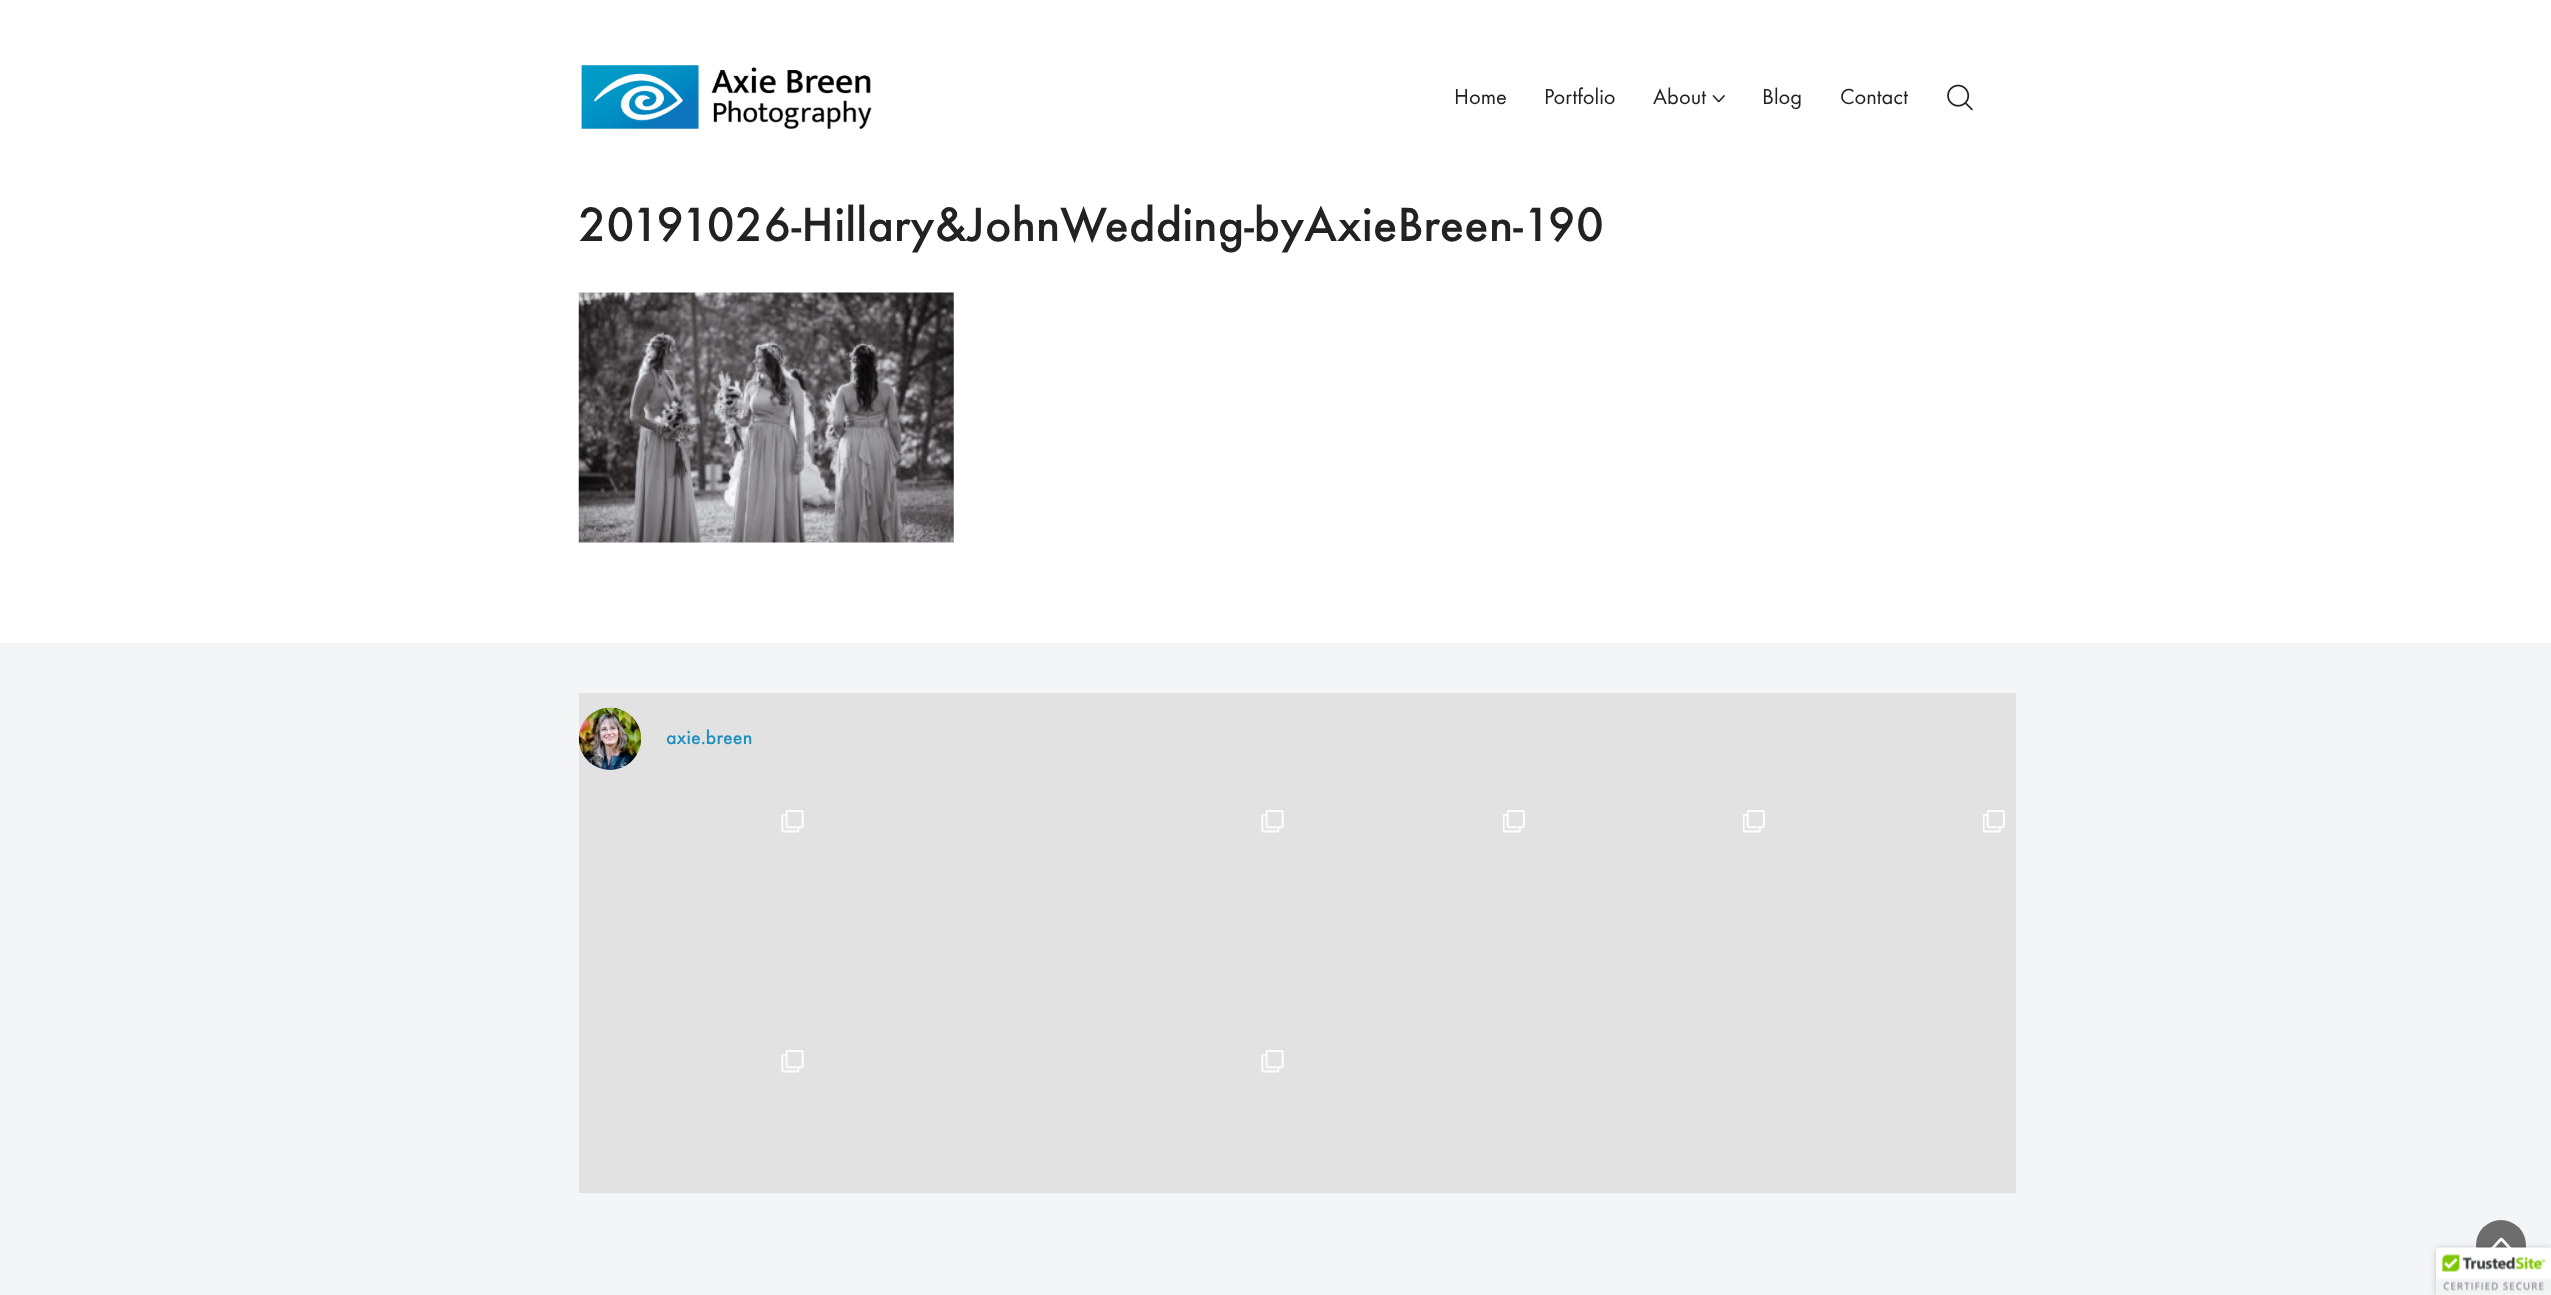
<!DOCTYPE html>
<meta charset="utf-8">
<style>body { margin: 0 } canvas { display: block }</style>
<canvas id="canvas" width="2551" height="1295"></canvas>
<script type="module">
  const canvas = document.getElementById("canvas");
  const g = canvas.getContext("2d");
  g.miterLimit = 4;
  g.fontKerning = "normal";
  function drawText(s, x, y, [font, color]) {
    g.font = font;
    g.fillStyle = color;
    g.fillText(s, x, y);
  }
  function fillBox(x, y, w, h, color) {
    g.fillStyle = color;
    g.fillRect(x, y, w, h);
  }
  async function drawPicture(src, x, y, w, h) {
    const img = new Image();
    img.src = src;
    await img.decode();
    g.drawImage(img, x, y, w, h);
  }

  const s1 = ["22.5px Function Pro", "#222222"];
  const s2 = ["500 50px Function Pro", "#222222"];
  const s3 = ["500 20px Function Pro", "#1E8FBF"];

  fillBox(0, 0, 2551, 1295, "#FFFFFF");
  await drawPicture("pic1.png", 581, 65, 291, 65);
  drawText("Home", 1454, 104, s1);
  drawText("Portfolio", 1544, 104, s1);
  drawText("About", 1653, 104, s1);
  await drawPicture("pic2.png", 1712, 95, 13, 8);
  drawText("Blog", 1762, 104, s1);
  drawText("Contact", 1840, 104, s1);
  await drawPicture("pic3.png", 1947, 84, 26, 27);
  drawText("20191026-Hillary&JohnWedding-byAxieBreen-190", 578, 241, s2);
  await drawPicture("pic4.png", 578, 292, 376, 251);
  fillBox(0, 643, 2551, 652, "#F3F5F7");
  fillBox(579, 693, 1437, 500, "#E2E2E2");
  await drawPicture("pic5.png", 578, 707, 64, 63);
  drawText("axie.breen", 666, 744, s3);
  await drawPicture("pic6.png", 781, 810, 23, 23);
  await drawPicture("pic6.png", 1261, 810, 23, 23);
  await drawPicture("pic7.png", 1503, 810, 22, 23);
  await drawPicture("pic7.png", 1743, 810, 22, 23);
  await drawPicture("pic7.png", 1983, 810, 22, 23);
  await drawPicture("pic6.png", 781, 1050, 23, 23);
  await drawPicture("pic6.png", 1261, 1050, 23, 23);
  g.fillStyle = "#6D6D6E";
  g.beginPath();
  g.arc(2501, 1245, 25, 0, Math.PI * 2);
  g.fill();
  await drawPicture("pic8.png", 2491, 1237, 21, 11);
  g.fillStyle = "rgba(0, 0, 0, 0.2)";
  g.filter = "blur(3px)";
  g.beginPath();
  g.roundRect(2436, 1248, 115, 47, 2.5);
  g.fill();
  g.filter = "none";
  g.fillStyle = "#FFFFFF";
  g.beginPath();
  g.roundRect(2436, 1248, 115, 47, [2.5, 0, 0, 0]);
  g.fill();
  await drawPicture("pic9.png", 2436, 1247, 115, 48);
</script>
